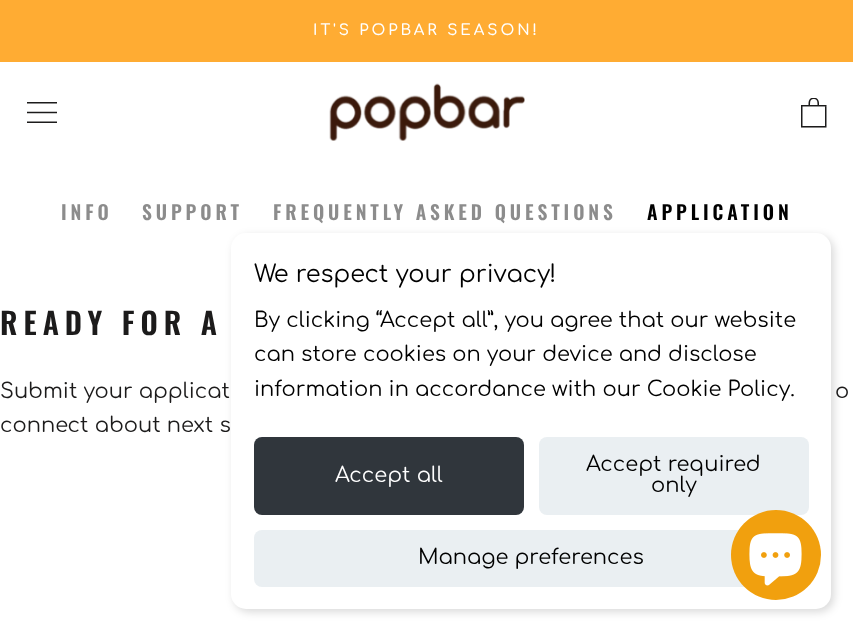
<!DOCTYPE html>
<meta charset="utf-8">
<style>body { margin: 0 } canvas { display: block }</style>
<canvas id="canvas" width="853" height="631"></canvas>
<script type="module">
  const canvas = document.getElementById("canvas");
  const g = canvas.getContext("2d");
  g.miterLimit = 4;
  g.fontKerning = "normal";
  function drawText(s, x, y, [font, color]) {
    g.font = font;
    g.fillStyle = color;
    g.fillText(s, x, y);
  }
  function fillBox(x, y, w, h, color) {
    g.fillStyle = color;
    g.fillRect(x, y, w, h);
  }
  function fillRounded(x, y, w, h, r, color) {
    g.fillStyle = color;
    g.beginPath();
    g.roundRect(x, y, w, h, r);
    g.fill();
  }
  async function drawPicture(src, x, y, w, h) {
    const img = new Image();
    img.src = src;
    await img.decode();
    g.drawImage(img, x, y, w, h);
  }

  const s1 = ["600 15px Comfortaa", "#FFFFFF"];
  const s2 = ["600 19.5px Oswald", "#8C8C8C"];
  const s3 = ["600 19.5px Oswald", "#000000"];
  const s4 = ["600 30px Oswald", "#1C1B1B"];
  const s5 = ["21px Comfortaa", "#1C1B1B"];
  const s6 = ["24px Comfortaa", "#000000"];
  const s7 = ["21px Comfortaa", "#000000"];
  const s8 = ["21px Comfortaa", "#FFFFFF"];

  fillBox(0, 0, 853, 631, "#FFFFFF");
  fillBox(0, 0, 853, 62, "#FFAC33");
  g.letterSpacing = "3px";
  drawText("IT'S POPBAR SEASON!", 313, 35, s1);
  await drawPicture("pic1.png", 27, 102, 30, 21);
  await drawPicture("pic2.png", 329, 83, 196, 58);
  await drawPicture("pic3.png", 801, 98, 26, 30);
  g.letterSpacing = "3.9px";
  drawText("INFO", 61, 220, s2);
  drawText("SUPPORT", 142, 220, s2);
  drawText("FREQUENTLY ASKED QUESTIONS", 273, 220, s2);
  drawText("APPLICATION", 647, 220, s3);
  g.letterSpacing = "6px";
  drawText("READY FOR A", 0, 335, s4);
  g.letterSpacing = "0px";
  drawText("Submit your applicat", 0, 398, s5);
  drawText("o", 835, 398, s5);
  drawText("connect about next s", 0, 432, s5);
  g.fillStyle = "rgba(0, 0, 0, 0.15)";
  g.filter = "blur(4.5px)";
  g.beginPath();
  g.roundRect(234, 236, 600, 376, 15);
  g.fill();
  g.filter = "none";
  fillRounded(231, 233, 600, 376, 15, "#FFFFFF");
  drawText("We respect your privacy!", 254, 282, s6);
  drawText("By clicking “Accept all”, you agree that our website", 254, 327, s7);
  drawText("can store cookies on your device and disclose", 254, 361, s7);
  drawText("information in accordance with our Cookie Policy.", 254, 396, s7);
  fillRounded(254, 437, 270, 78, 8, "#30363C");
  drawText("Accept all", 335, 482, s8);
  fillRounded(539, 437, 270, 78, 8, "#EAEFF2");
  drawText("Accept required", 586, 471, s7);
  drawText("only", 651, 492, s7);
  fillRounded(254, 530, 555, 57, 8, "#EAEFF2");
  drawText("Manage preferences", 418, 564, s7);
  g.fillStyle = "#F1A00E";
  g.beginPath();
  g.arc(776, 555, 45, 0, Math.PI * 2);
  g.fill();
  await drawPicture("pic4.png", 749, 533, 53, 53);
</script>
